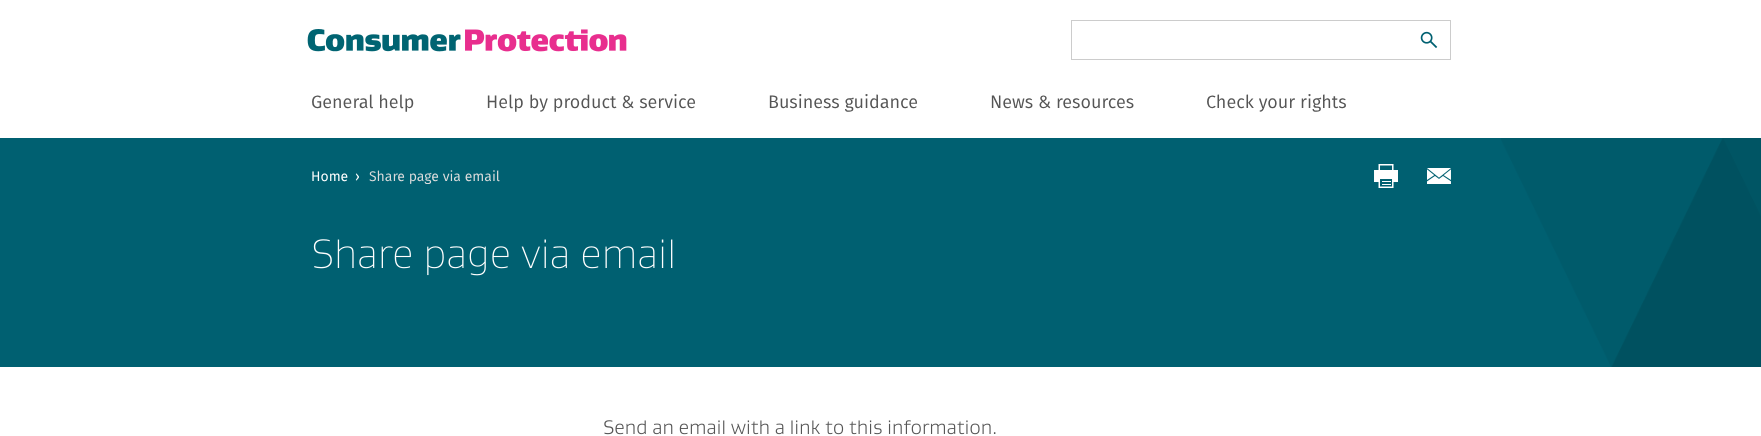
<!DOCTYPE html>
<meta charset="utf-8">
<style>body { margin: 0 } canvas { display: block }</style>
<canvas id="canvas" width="1761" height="436"></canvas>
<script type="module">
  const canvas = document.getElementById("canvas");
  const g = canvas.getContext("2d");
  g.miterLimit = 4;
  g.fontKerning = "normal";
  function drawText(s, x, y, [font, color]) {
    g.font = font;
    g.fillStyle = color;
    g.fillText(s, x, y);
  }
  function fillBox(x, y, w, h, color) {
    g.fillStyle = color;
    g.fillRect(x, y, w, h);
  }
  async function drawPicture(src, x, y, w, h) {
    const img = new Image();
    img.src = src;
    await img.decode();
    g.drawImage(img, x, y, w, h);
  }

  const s1 = ["18px Fira Sans", "#555555"];
  const s2 = ["14px Fira Sans", "#FFFFFF"];
  const s3 = ["14px Fira Sans", "#DDDDDD"];

  fillBox(0, 0, 1761, 436, "#FFFFFF");
  await drawPicture("pic1.png", 307, 29, 320, 23);
  g.strokeStyle = "#CCCCCC";
  g.strokeRect(1071.5, 20.5, 379, 39);
  await drawPicture("pic2.png", 1420, 31, 18, 17);
  drawText("General help", 311, 108, s1);
  drawText("Help by product & service", 486, 108, s1);
  drawText("Business guidance", 768, 108, s1);
  drawText("News & resources", 990, 108, s1);
  drawText("Check your rights", 1206, 108, s1);
  fillBox(0, 138, 1761, 229, "#006071");
  await drawPicture("pic3.png", 1501, 138, 260, 229);
  drawText("Home", 311, 181, s2);
  drawText("›", 355, 181, s2);
  drawText("Share page via email", 369, 181, s3);
  await drawPicture("pic4.png", 1374, 164, 24, 24);
  await drawPicture("pic5.png", 1427, 168, 24, 16);
  await drawPicture("pic6.png", 313, 239, 360, 37);
  await drawPicture("pic7.png", 604, 420, 392, 15);
</script>
